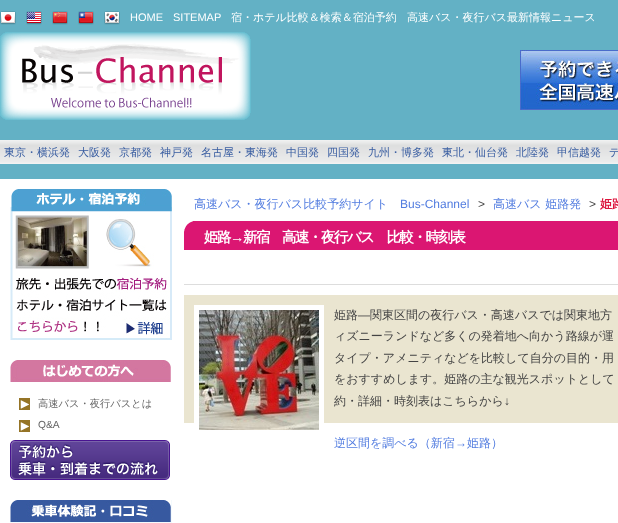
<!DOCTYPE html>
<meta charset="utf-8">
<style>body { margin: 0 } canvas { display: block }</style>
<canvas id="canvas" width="618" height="523"></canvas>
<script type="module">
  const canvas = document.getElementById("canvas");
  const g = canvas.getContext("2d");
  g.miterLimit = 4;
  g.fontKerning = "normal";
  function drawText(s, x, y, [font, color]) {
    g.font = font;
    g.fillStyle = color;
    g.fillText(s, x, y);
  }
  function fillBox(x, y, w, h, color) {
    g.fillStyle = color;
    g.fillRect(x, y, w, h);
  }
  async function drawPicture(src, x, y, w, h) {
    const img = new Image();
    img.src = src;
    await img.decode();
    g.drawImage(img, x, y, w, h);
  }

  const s1 = ["11px Liberation Sans", "#FFFFFF"];
  const s2 = ["500 11px WenQuanYi Zen Hei", "#FFFFFF"];
  const s3 = ["500 11px WenQuanYi Zen Hei", "#385DA1"];
  const s4 = ["500 10.25px WenQuanYi Zen Hei", "#666666"];
  const s5 = ["10.25px Liberation Sans", "#666666"];
  const s6 = ["500 12px WenQuanYi Zen Hei", "#537DE0"];
  const s7 = ["12px Liberation Sans", "#537DE0"];
  const s8 = ["12px Liberation Sans", "#444444"];
  const s9 = ["bold 12px WenQuanYi Zen Hei", "#DC143C"];
  const s10 = ["bold 14.4px WenQuanYi Zen Hei", "#FFFFFF"];
  const s11 = ["bold 14.4px Liberation Sans", "#FFFFFF"];
  const s12 = ["500 12px WenQuanYi Zen Hei", "#444444"];

  fillBox(0, 0, 618, 523, "#FFFFFF");
  await drawPicture("pic1.png", 0, 0, 618, 179);
  await drawPicture("pic2.png", 0, 11, 16, 14);
  await drawPicture("pic3.png", 26, 11, 16, 14);
  await drawPicture("pic4.png", 52, 11, 16, 14);
  await drawPicture("pic5.png", 78, 11, 16, 14);
  await drawPicture("pic6.png", 104, 11, 16, 14);
  drawText("HOME", 130, 21, s1);
  drawText("SITEMAP", 173, 21, s1);
  drawText("宿・ホテル比較＆検索＆宿泊予約", 231, 21, s2);
  drawText("高速バス・夜行バス最新情報ニュース", 407, 21, s2);
  await drawPicture("pic7.png", 0, 140, 618, 24);
  drawText("東京・横浜発", 4, 156, s3);
  drawText("大阪発", 78, 156, s3);
  drawText("京都発", 119, 156, s3);
  drawText("神戸発", 160, 156, s3);
  drawText("名古屋・東海発", 201, 156, s3);
  drawText("中国発", 286, 156, s3);
  drawText("四国発", 327, 156, s3);
  drawText("九州・博多発", 368, 156, s3);
  drawText("東北・仙台発", 442, 156, s3);
  drawText("北陸発", 516, 156, s3);
  drawText("甲信越発", 557, 156, s3);
  drawText("デ", 609, 156, s3);
  await drawPicture("pic8.png", 10, 189, 162, 151);
  await drawPicture("pic9.png", 10, 360, 161, 22);
  await drawPicture("pic10.png", 19, 398, 11, 12);
  drawText("高速バス・夜行バスとは", 38, 407, s4);
  await drawPicture("pic10.png", 19, 420, 11, 12);
  drawText("Q&A", 38, 428, s5);
  await drawPicture("pic11.png", 10, 440, 160, 40);
  fillBox(10, 500, 162, 23, "#F4FAFD");
  await drawPicture("pic12.png", 10, 500, 161, 22);
  drawText("高速バス・夜行バス比較予約サイト", 194, 208, s6);
  drawText("Bus-Channel", 400, 208, s7);
  drawText(">", 478, 208, s8);
  drawText("高速バス 姫路発", 493, 208, s6);
  drawText(">", 589, 208, s8);
  drawText("姫路", 600, 208, s9);
  await drawPicture("pic13.png", 184, 221, 434, 29);
  g.letterSpacing = "-1.4px";
  drawText("姫路", 204, 242, s10);
  drawText("→", 230, 242, s11);
  drawText("新宿　高速・夜行バス　比較・時刻表", 243, 242, s10);
  fillBox(184, 284, 434, 1, "#DDDDDD");
  fillBox(184, 295, 434, 128, "#EAE5D0");
  g.strokeStyle = "#FFFFFF";
  g.lineWidth = 5;
  g.strokeRect(196.5, 307.5, 125, 125);
  await drawPicture("pic14.png", 199, 310, 120, 120);
  g.letterSpacing = "0px";
  drawText("姫路", 334, 319, s12);
  drawText("―", 358, 319, s8);
  drawText("関東区間の夜行バス・高速バスでは関東地方", 370, 319, s12);
  drawText("ィズニーランドなど多くの発着地へ向かう路線が運", 334, 340, s12);
  drawText("タイプ・アメニティなどを比較して自分の目的・用", 334, 362, s12);
  drawText("をおすすめします。姫路の主な観光スポットとして", 334, 383, s12);
  drawText("約・詳細・時刻表はこちらから", 334, 405, s12);
  drawText("↓", 504, 405, s8);
  drawText("逆区間を調べる（新宿", 334, 447, s6);
  drawText("→", 455, 447, s7);
  drawText("姫路）", 467, 447, s6);
  await drawPicture("pic15.png", 0, 32, 251, 88);
  await drawPicture("pic16.png", 520, 50, 98, 60);
</script>
